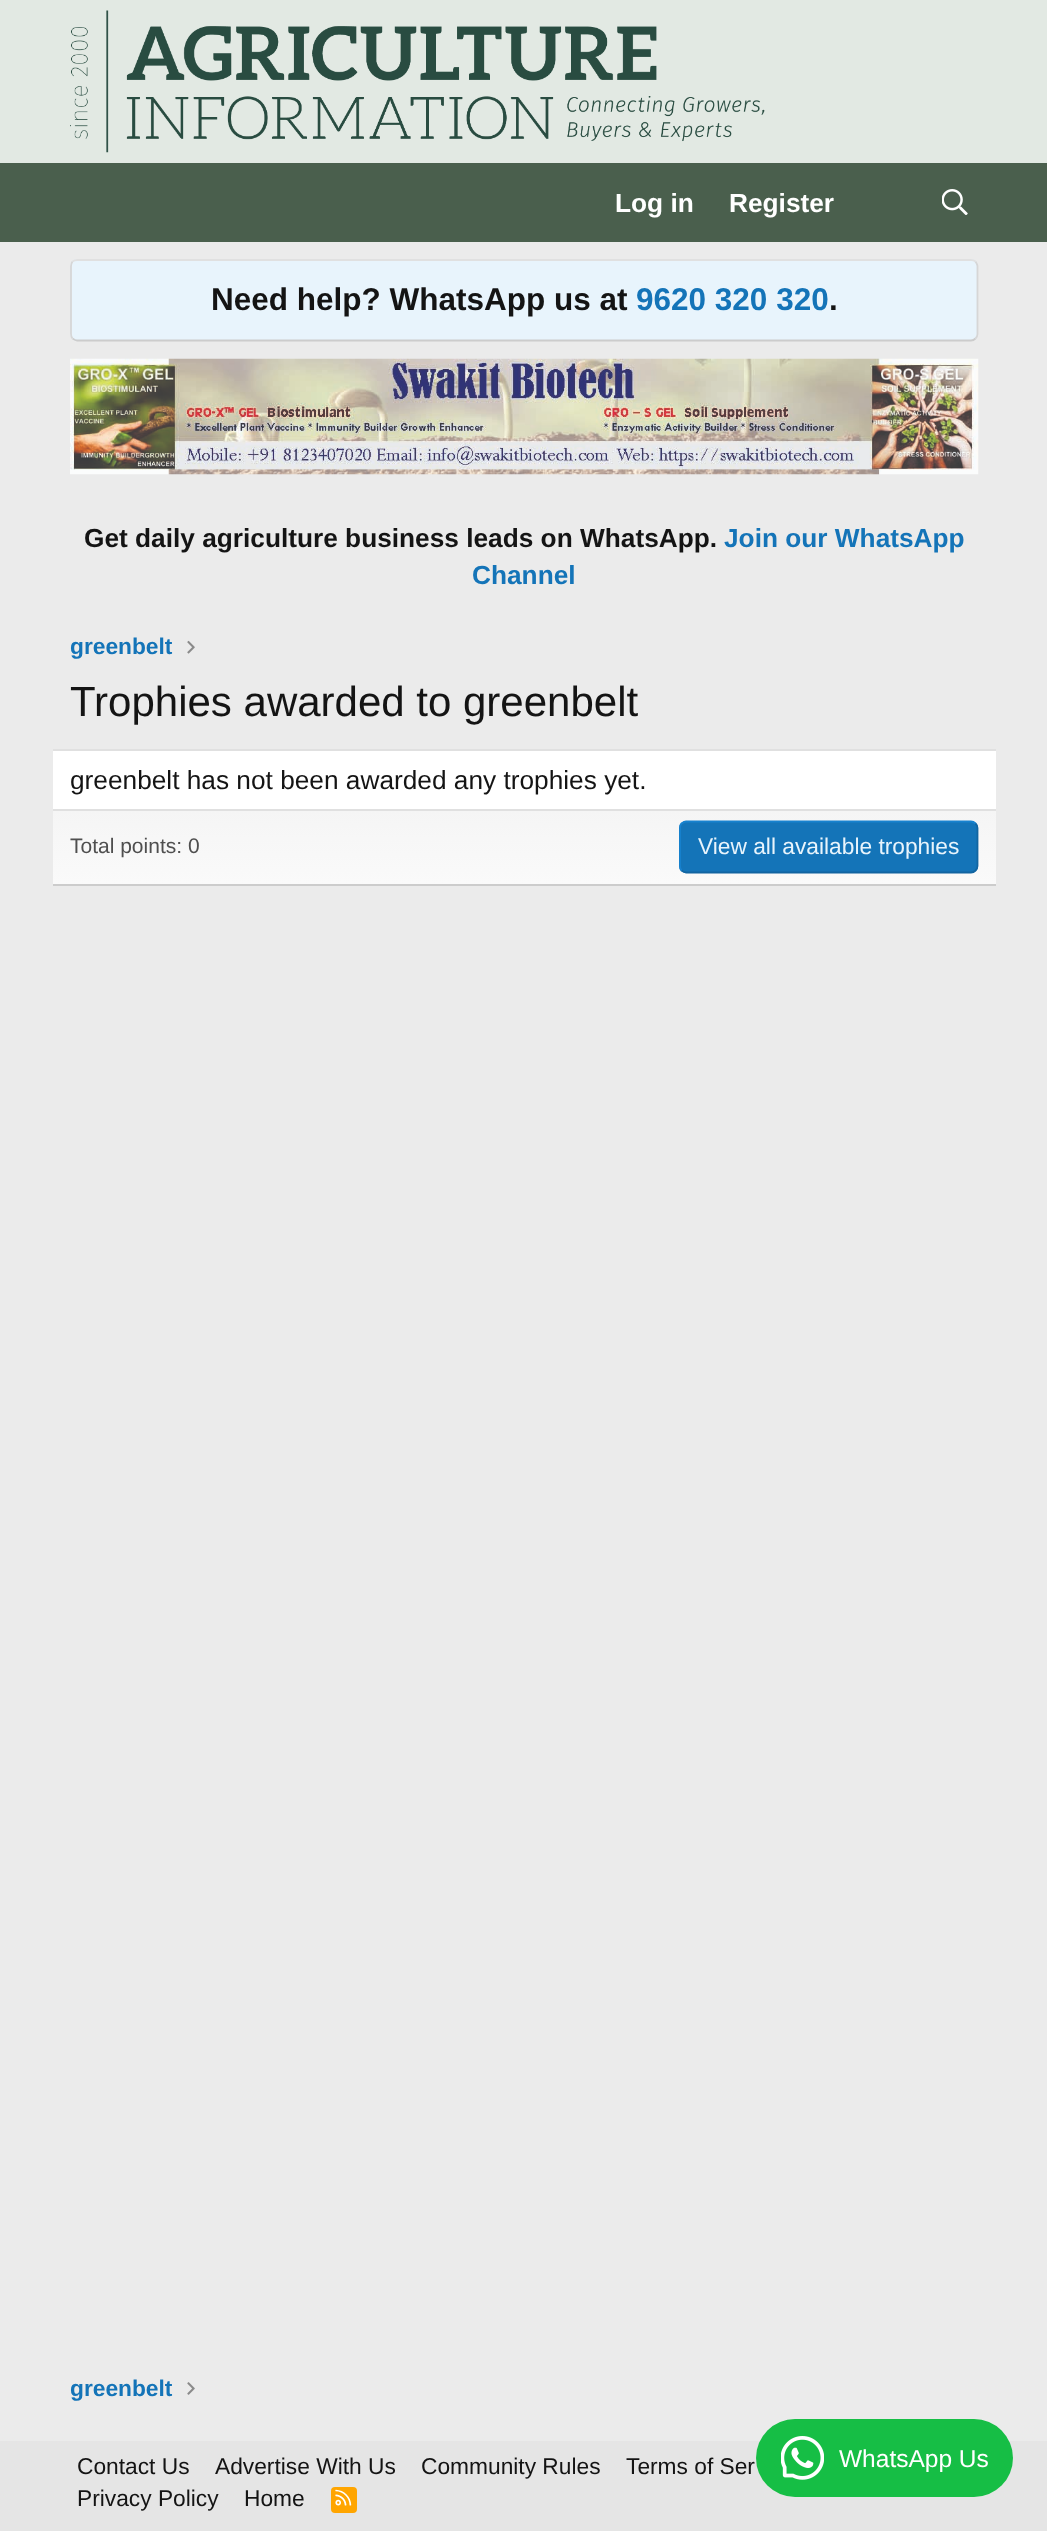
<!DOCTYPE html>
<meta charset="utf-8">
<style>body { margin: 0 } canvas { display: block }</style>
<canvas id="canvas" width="1047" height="2531"></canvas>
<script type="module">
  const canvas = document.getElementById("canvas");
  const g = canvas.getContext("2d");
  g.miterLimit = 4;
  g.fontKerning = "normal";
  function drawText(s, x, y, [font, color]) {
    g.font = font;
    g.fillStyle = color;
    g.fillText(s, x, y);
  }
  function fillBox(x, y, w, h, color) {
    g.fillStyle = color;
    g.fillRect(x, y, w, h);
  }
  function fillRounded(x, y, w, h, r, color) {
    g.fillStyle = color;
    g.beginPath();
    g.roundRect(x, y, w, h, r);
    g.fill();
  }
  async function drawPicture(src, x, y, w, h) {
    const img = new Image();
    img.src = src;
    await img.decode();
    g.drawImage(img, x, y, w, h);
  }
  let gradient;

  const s1 = ["bold 26.25px Liberation Sans", "#FFFFFF"];
  const s2 = ["bold 31.5px Liberation Sans", "#141414"];
  const s3 = ["bold 31.5px Liberation Sans", "#1474B8"];
  const s4 = ["bold 26.25px Liberation Sans", "#141414"];
  const s5 = ["bold 26.25px Liberation Sans", "#1474B8"];
  const s6 = ["bold 22.75px Liberation Sans", "#1474B8"];
  const s7 = ["42px Liberation Sans", "#141414"];
  const s8 = ["26.25px Liberation Sans", "#141414"];
  const s9 = ["21px Liberation Sans", "#4F4F4F"];
  const s10 = ["22.75px Liberation Sans", "#E8F4FC"];
  const s11 = ["22.75px Liberation Sans", "#141414"];
  const s12 = ["24.5px Liberation Sans", "#FFFFFF"];

  fillBox(0, 0, 1047, 2531, "#EBEBEB");
  fillBox(0, 0, 1047, 163, "#E2E9E3");
  await drawPicture("pic1.png", 70, 10, 695, 143);
  fillBox(0, 163, 1047, 79, "#4A5F4D");
  drawText("Log in", 615, 212, s1);
  drawText("Register", 729, 212, s1);
  await drawPicture("pic2.png", 942, 189, 26, 26);
  fillRounded(70, 259, 908, 82, 7, "#E8F4FC");
  g.beginPath();
  g.moveTo(72.5, 261.5);
  g.bezierCurveTo(74, 260.5, 75.5, 260, 77, 260);
  g.lineTo(971, 260);
  g.bezierCurveTo(973, 260, 974.5, 260.5, 975.5, 261.5);
  g.strokeStyle = "#E0E0E0";
  g.lineWidth = 1.8;
  g.stroke();
  g.beginPath();
  g.moveTo(975.5, 261.5);
  g.bezierCurveTo(976.5, 263, 977.5, 264.5, 977.5, 266);
  g.lineTo(977.5, 334);
  g.bezierCurveTo(977.5, 336, 976.5, 337.5, 975.5, 338.5);
  g.strokeStyle = "#D6D6D6";
  g.stroke();
  g.beginPath();
  g.moveTo(975.5, 338.5);
  g.bezierCurveTo(974.5, 339.5, 973, 340.5, 971, 340.5);
  g.lineTo(77, 340.5);
  g.bezierCurveTo(75.5, 340.5, 74, 339.5, 72.5, 338.5);
  g.strokeStyle = "#CCCCCC";
  g.stroke();
  g.beginPath();
  g.moveTo(72.5, 338.5);
  g.bezierCurveTo(71.5, 337.5, 71, 336, 71, 334);
  g.lineTo(71, 266);
  g.bezierCurveTo(71, 264.5, 71.5, 263, 72.5, 261.5);
  g.strokeStyle = "#D6D6D6";
  g.stroke();
  drawText("Need help? WhatsApp us at", 211, 310, s2);
  drawText("9620 320 320", 636, 310, s3);
  drawText(".", 829, 310, s2);
  await drawPicture("pic3.png", 70, 358, 909, 117);
  drawText("Get daily agriculture business leads on WhatsApp.", 84, 547, s4);
  drawText("Join our WhatsApp", 724, 547, s5);
  drawText("Channel", 472, 584, s5);
  drawText("greenbelt", 70, 654, s6);
  await drawPicture("pic4.png", 187, 640, 8, 14);
  drawText("Trophies awarded to greenbelt", 70, 716, s7);
  fillBox(53, 751, 943, 58, "#FFFFFF");
  fillBox(53, 749, 943, 2, "#E0E0E0");
  fillBox(53, 884, 943, 2, "#CCCCCC");
  drawText("greenbelt has not been awarded any trophies yet.", 70, 789, s8);
  gradient = g.createLinearGradient(524, 810, 524, 884);
  gradient.addColorStop(0, "#F5F5F5");
  gradient.addColorStop(1, "#FAFAFA");
  g.fillStyle = gradient;
  g.fillRect(53, 811, 943, 73);
  fillBox(53, 809, 943, 2, "#E0E0E0");
  drawText("Total points: 0", 70, 853, s9);
  fillRounded(679, 821, 299, 52, 7, "#1474B8");
  g.beginPath();
  g.moveTo(975.5, 823.5);
  g.bezierCurveTo(976.5, 824.5, 977.5, 826, 977.5, 828);
  g.lineTo(977.5, 866);
  g.bezierCurveTo(977.5, 868, 976.5, 869.5, 975.5, 870.5);
  g.bezierCurveTo(974.5, 871.5, 973, 872.5, 971, 872.5);
  g.lineTo(686, 872.5);
  g.bezierCurveTo(684.5, 872.5, 683, 871.5, 681.5, 870.5);
  g.strokeStyle = "#1265A1";
  g.stroke();
  g.beginPath();
  g.moveTo(681.5, 870.5);
  g.bezierCurveTo(680.5, 869.5, 680, 868, 680, 866);
  g.lineTo(680, 828);
  g.bezierCurveTo(680, 826, 680.5, 824.5, 681.5, 823.5);
  g.bezierCurveTo(683, 822.5, 684.5, 821.5, 686, 821.5);
  g.lineTo(971, 821.5);
  g.bezierCurveTo(973, 821.5, 974.5, 822.5, 975.5, 823.5);
  g.strokeStyle = "#1782CF";
  g.stroke();
  drawText("View all available trophies", 698, 854, s10);
  drawText("greenbelt", 70, 2396, s6);
  await drawPicture("pic5.png", 187, 2382, 8, 13);
  fillBox(0, 2441, 1047, 90, "#E5E5E5");
  drawText("Contact Us", 77, 2474, s11);
  drawText("Advertise With Us", 215, 2474, s11);
  drawText("Community Rules", 421, 2474, s11);
  drawText("Terms of Ser", 626, 2474, s11);
  drawText("Privacy Policy", 77, 2506, s11);
  drawText("Home", 244, 2506, s11);
  fillRounded(331, 2487, 26, 26, 4, "#FFA500");
  await drawPicture("pic6.png", 335, 2489, 17, 17);
  fillRounded(756, 2419, 257, 78, 39, "#16BE45");
  await drawPicture("pic7.png", 781, 2436, 43, 44);
  drawText("WhatsApp Us", 839, 2467, s12);
</script>
